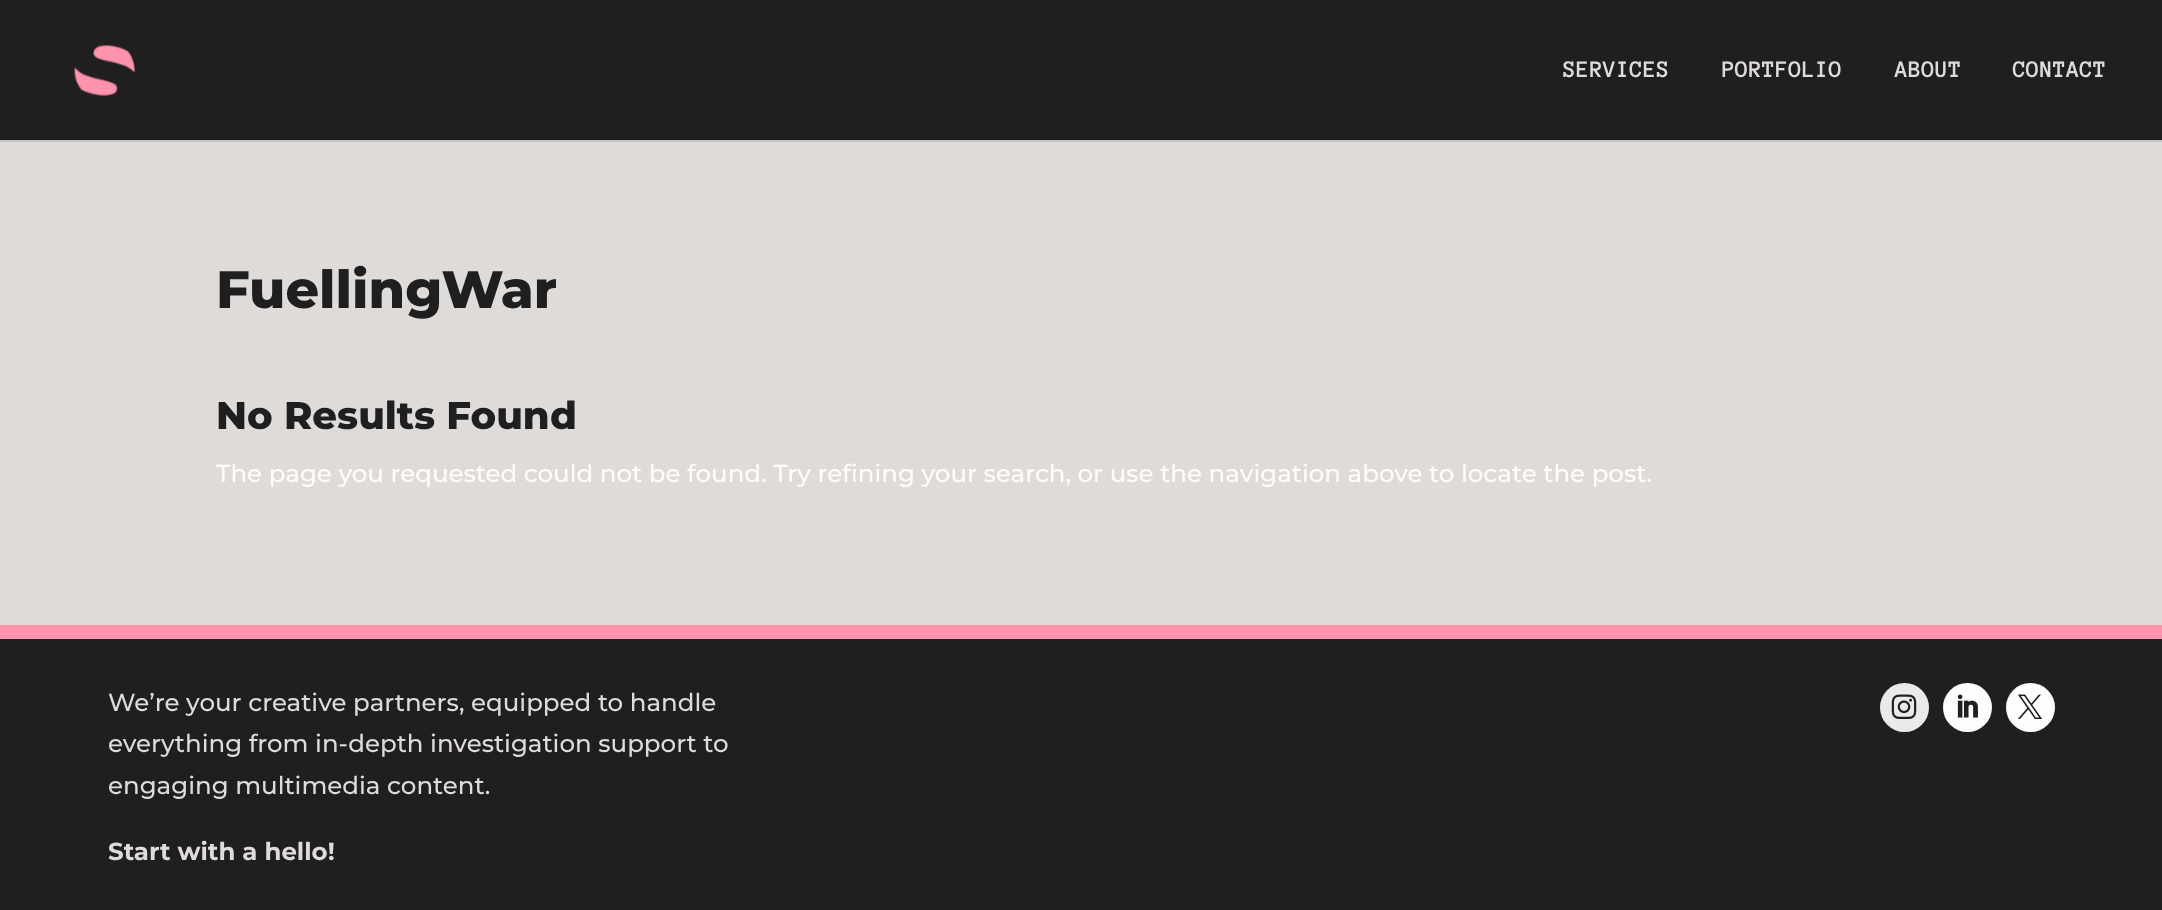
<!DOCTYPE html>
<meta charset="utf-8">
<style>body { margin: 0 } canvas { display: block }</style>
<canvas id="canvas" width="2162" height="910"></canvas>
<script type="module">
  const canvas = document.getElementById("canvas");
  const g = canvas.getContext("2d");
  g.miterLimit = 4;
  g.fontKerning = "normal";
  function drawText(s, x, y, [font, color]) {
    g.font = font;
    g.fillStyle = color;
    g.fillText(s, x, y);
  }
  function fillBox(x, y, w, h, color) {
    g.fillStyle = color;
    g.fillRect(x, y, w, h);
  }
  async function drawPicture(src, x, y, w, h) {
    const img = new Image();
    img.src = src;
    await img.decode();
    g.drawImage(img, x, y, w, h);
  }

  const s1 = ["bold 24.5px Anonymous Pro", "#DFDBD8"];
  const s2 = ["800 52.5px Montserrat", "#1F1F1F"];
  const s3 = ["800 38.5px Montserrat", "#1F1F1F"];
  const s4 = ["500 24.5px Montserrat", "#FEFDFB"];
  const s5 = ["500 24.5px Montserrat", "#DFDBD8"];
  const s6 = ["bold 24.5px Montserrat", "#DFDBD8"];

  fillBox(0, 0, 2162, 910, "#1F1F1F");
  fillBox(0, 140, 2162, 2, "#C9C5C2");
  await drawPicture("pic1.png", 73, 45, 62, 51);
  drawText("SERVICES", 1563, 77, s1);
  drawText("PORTFOLIO", 1722, 77, s1);
  drawText("ABOUT", 1895, 77, s1);
  drawText("CONTACT", 2013, 77, s1);
  fillBox(0, 142, 2162, 483, "#DFDBD8");
  drawText("FuellingWar", 216, 308, s2);
  drawText("No Results Found", 216, 429, s3);
  drawText("The page you requested could not be found. Try refining your search, or use the navigation above to locate the post.", 216, 482, s4);
  fillBox(0, 625, 2162, 14, "#FF93AD");
  drawText("We’re your creative partners, equipped to handle", 108, 711, s5);
  drawText("everything from in-depth investigation support to", 108, 752, s5);
  drawText("engaging multimedia content.", 108, 794, s5);
  drawText("Start with a hello!", 108, 860, s6);
  g.fillStyle = "#EAEAEA";
  g.beginPath();
  g.arc(1904.5, 707.5, 24.5, 0, Math.PI * 2);
  g.fill();
  await drawPicture("pic2.png", 1891, 694, 26, 25);
  g.fillStyle = "#FEFDFB";
  g.beginPath();
  g.arc(1967.5, 707.5, 24.5, 0, Math.PI * 2);
  g.fill();
  await drawPicture("pic3.png", 1957, 694, 21, 24);
  g.beginPath();
  g.arc(2030.5, 707.5, 24.5, 0, Math.PI * 2);
  g.fill();
  await drawPicture("pic4.png", 2018, 694, 24, 25);
</script>
